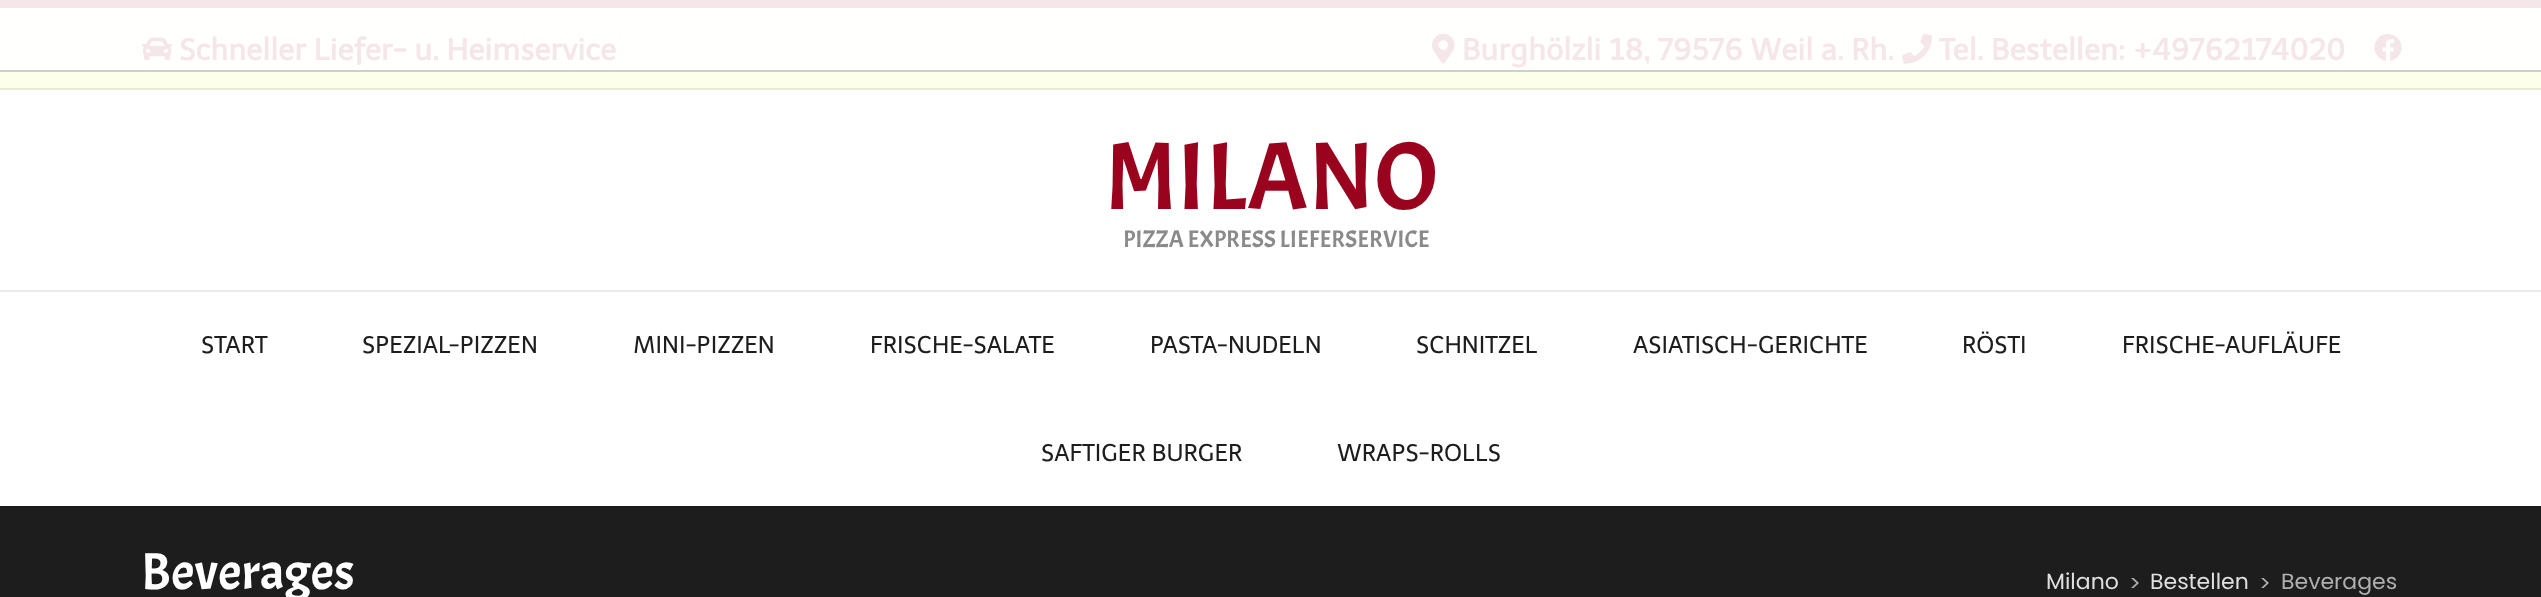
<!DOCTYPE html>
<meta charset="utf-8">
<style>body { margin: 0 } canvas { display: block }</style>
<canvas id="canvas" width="2541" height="597"></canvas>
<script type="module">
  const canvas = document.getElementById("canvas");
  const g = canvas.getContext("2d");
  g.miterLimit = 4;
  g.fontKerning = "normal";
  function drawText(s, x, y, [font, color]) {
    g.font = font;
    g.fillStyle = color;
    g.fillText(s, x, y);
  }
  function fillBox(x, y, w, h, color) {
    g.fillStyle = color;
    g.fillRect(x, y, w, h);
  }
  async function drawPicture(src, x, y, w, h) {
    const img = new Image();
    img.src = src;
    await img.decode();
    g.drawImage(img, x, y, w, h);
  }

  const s1 = ["bold 30px Telex", "#F5E6E9"];
  const s2 = ["96px Acme", "#9A031E"];
  const s3 = ["24px Acme", "#8A8A8A"];
  const s4 = ["24px Telex", "#1D1D1D"];
  const s5 = ["52px Acme", "#FFFFFF"];
  const s6 = ["22px Poppins", "#DFDFDF"];
  const s7 = ["22px Poppins", "#AFAFAF"];

  fillBox(0, 0, 2541, 597, "#1D1D1D");
  fillBox(0, 506, 2541, 2, "#1A1A1A");
  fillBox(0, 90, 2541, 416, "#FFFFFF");
  fillBox(0, 0, 2541, 8, "#F5E6E9");
  fillBox(0, 72, 2541, 16, "#FCFFE9");
  fillBox(0, 8, 2541, 62, "#FFFFFD");
  fillBox(0, 88, 2541, 2, "#E8EBD6");
  await drawPicture("pic1.png", 142, 37, 30, 23);
  drawText("Schneller Liefer- u. Heimservice", 179, 60, s1);
  await drawPicture("pic2.png", 1432, 33, 23, 31);
  drawText("Burghölzli 18, 79576 Weil a. Rh.", 1462, 60, s1);
  await drawPicture("pic3.png", 1902, 33, 31, 31);
  drawText("Tel. Bestellen: +49762174020", 1939, 60, s1);
  await drawPicture("pic4.png", 2374, 34, 28, 27);
  fillBox(0, 290, 2541, 2, "#EBEBEB");
  drawText("MILANO", 1105, 209, s2);
  drawText("PIZZA EXPRESS LIEFERSERVICE", 1123, 247, s3);
  drawText("START", 201, 353, s4);
  drawText("SPEZIAL-PIZZEN", 362, 353, s4);
  drawText("MINI-PIZZEN", 633, 353, s4);
  drawText("FRISCHE-SALATE", 870, 353, s4);
  drawText("PASTA-NUDELN", 1150, 353, s4);
  drawText("SCHNITZEL", 1416, 353, s4);
  drawText("ASIATISCH-GERICHTE", 1633, 353, s4);
  drawText("RÖSTI", 1962, 353, s4);
  drawText("FRISCHE-AUFLÄUFE", 2122, 353, s4);
  drawText("SAFTIGER BURGER", 1041, 461, s4);
  drawText("WRAPS-ROLLS", 1337, 461, s4);
  drawText("Beverages", 141, 589, s5);
  drawText("Milano", 2046, 589, s6);
  drawText(">", 2129, 591, s7);
  drawText("Bestellen", 2150, 589, s6);
  drawText(">", 2259, 591, s7);
  drawText("Beverages", 2281, 589, s7);
  fillBox(0, 70, 2541, 2, "#CECECE");
</script>
